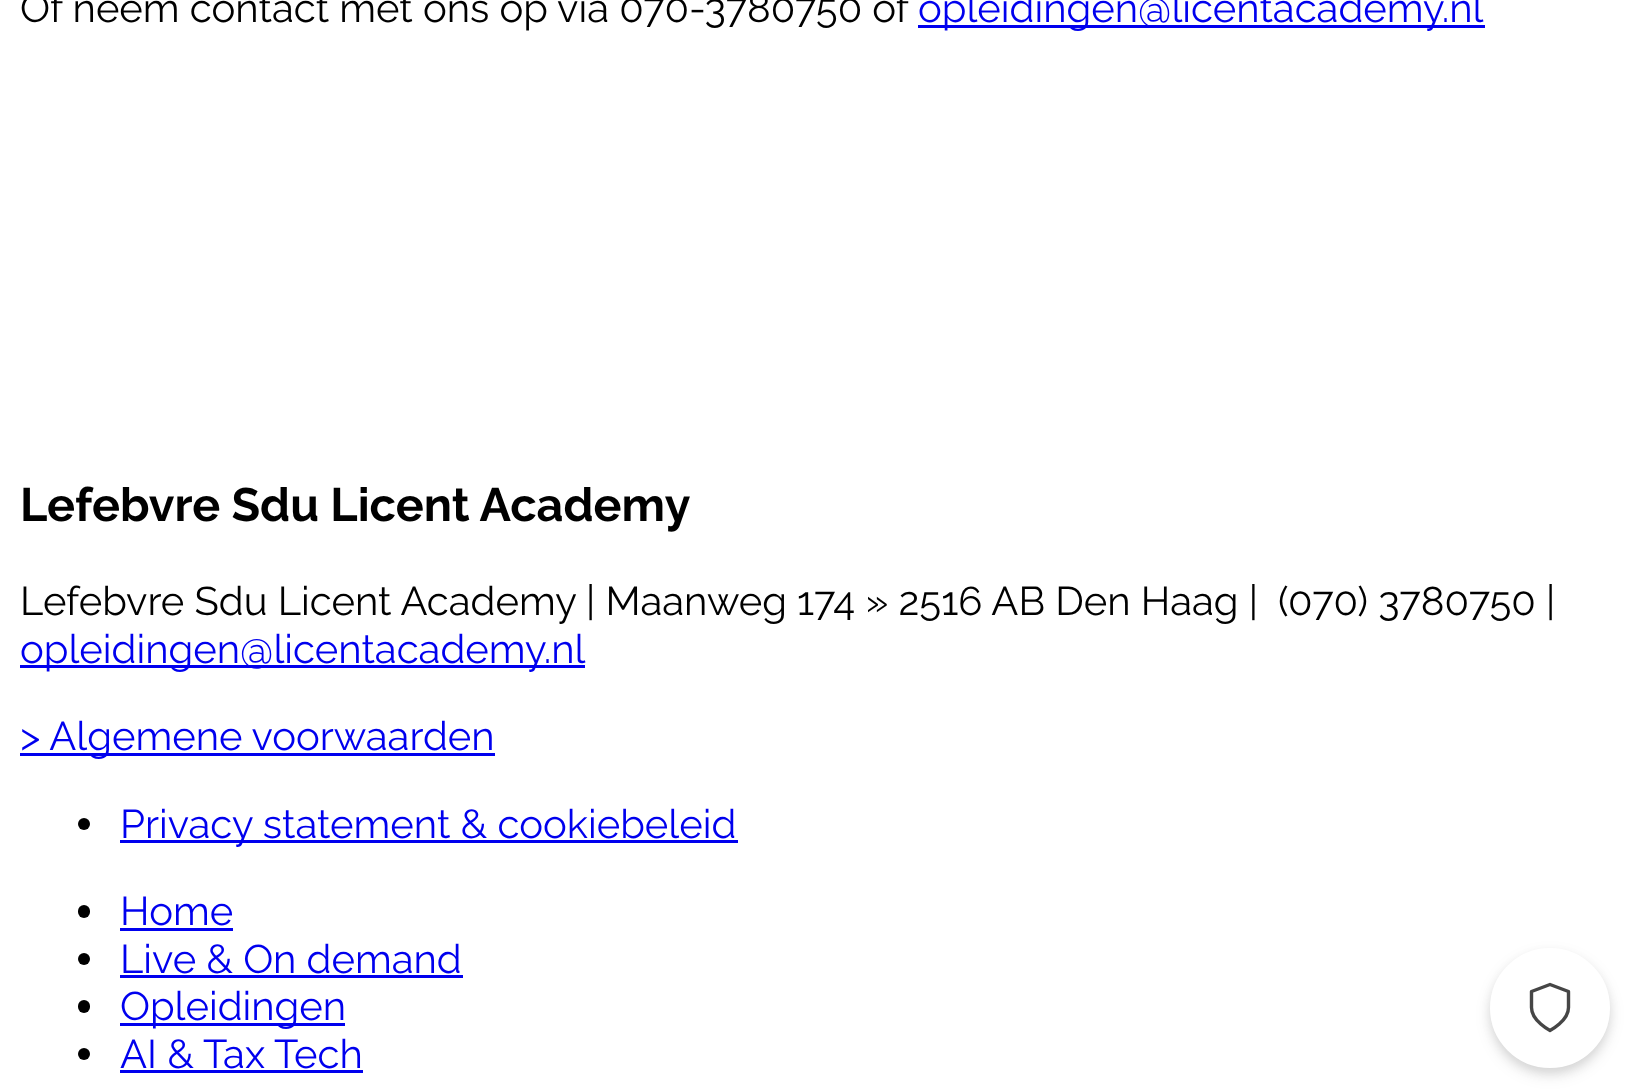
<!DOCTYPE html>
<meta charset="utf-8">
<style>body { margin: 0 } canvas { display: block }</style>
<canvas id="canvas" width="1634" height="1091"></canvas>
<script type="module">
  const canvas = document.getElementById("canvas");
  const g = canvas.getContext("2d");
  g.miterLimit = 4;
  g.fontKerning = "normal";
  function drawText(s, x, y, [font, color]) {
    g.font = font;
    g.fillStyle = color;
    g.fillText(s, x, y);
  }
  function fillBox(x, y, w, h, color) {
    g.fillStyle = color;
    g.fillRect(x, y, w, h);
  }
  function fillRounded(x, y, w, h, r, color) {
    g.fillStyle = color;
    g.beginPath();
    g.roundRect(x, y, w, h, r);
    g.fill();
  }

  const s1 = ["40px Raleway", "#000000"];
  const s2 = ["40px Raleway", "#0000EE"];
  const s3 = ["bold 46.75px Raleway", "#000000"];

  fillBox(0, 0, 1634, 1091, "#FFFFFF");
  drawText("Of neem contact met ons op via 070-3780750 of", 20, 22, s1);
  fillBox(918, 25, 567, 3, "#0000EE");
  drawText("opleidingen@licentacademy.nl", 918, 22, s2);
  drawText("Lefebvre Sdu Licent Academy", 20, 521, s3);
  drawText("Lefebvre Sdu Licent Academy | Maanweg 174 » 2516 AB Den Haag |", 20, 615, s1);
  drawText("(070) 3780750 |", 1278, 615, s1);
  fillBox(20, 665, 565, 3, "#0000EE");
  drawText("opleidingen@licentacademy.nl", 20, 663, s2);
  fillBox(20, 753, 475, 3, "#0000EE");
  drawText("> Algemene voorwaarden", 20, 750, s2);
  g.fillStyle = "#000000";
  g.beginPath();
  g.arc(84, 824, 6, 0, Math.PI * 2);
  g.fill();
  fillBox(120, 840, 618, 3, "#0000EE");
  drawText("Privacy statement & cookiebeleid", 120, 838, s2);
  fillRounded(78, 905, 12, 13, 6, "#000000");
  drawText("Home", 120, 925, s2);
  fillBox(120, 928, 113, 3, "#0000EE");
  g.fillStyle = "#000000";
  g.beginPath();
  g.arc(84, 959, 6, 0, Math.PI * 2);
  g.fill();
  drawText("Live & On demand", 120, 973, s2);
  fillBox(120, 975, 343, 3, "#0000EE");
  fillRounded(78, 1000, 12, 13, 6, "#000000");
  fillBox(120, 1023, 225, 3, "#0000EE");
  drawText("Opleidingen", 120, 1020, s2);
  g.fillStyle = "#000000";
  g.beginPath();
  g.arc(84, 1054, 6, 0, Math.PI * 2);
  g.fill();
  drawText("AI & Tax Tech", 120, 1068, s2);
  fillBox(120, 1070, 243, 3, "#0000EE");
  g.fillStyle = "rgba(0, 0, 0, 0.08)";
  g.filter = "blur(5px)";
  g.beginPath();
  g.roundRect(1490, 953, 120, 120, 60);
  g.fill();
  g.filter = "none";
  g.fillStyle = "rgba(0, 0, 0, 0.1)";
  g.filter = "blur(7.5px)";
  g.beginPath();
  g.roundRect(1490, 955, 120, 120, 60);
  g.fill();
  g.filter = "none";
  g.fillStyle = "#FFFFFF";
  g.beginPath();
  g.arc(1550, 1008, 58.5, 0, Math.PI * 2);
  g.fill();
  g.strokeStyle = "#FFFFFF";
  g.lineWidth = 3;
  g.stroke();
  g.beginPath();
  g.moveTo(1550, 1030.5);
  g.bezierCurveTo(1550, 1030.5, 1568.5, 1021, 1568.5, 1007.5);
  g.lineTo(1568.5, 991.5);
  g.lineTo(1550, 984.5);
  g.lineTo(1531.5, 991.5);
  g.lineTo(1531.5, 1007.5);
  g.bezierCurveTo(1531.5, 1021, 1550, 1030.5, 1550, 1030.5);
  g.strokeStyle = "#464646";
  g.lineWidth = 3.4;
  g.lineCap = "round";
  g.lineJoin = "round";
  g.stroke();
</script>
